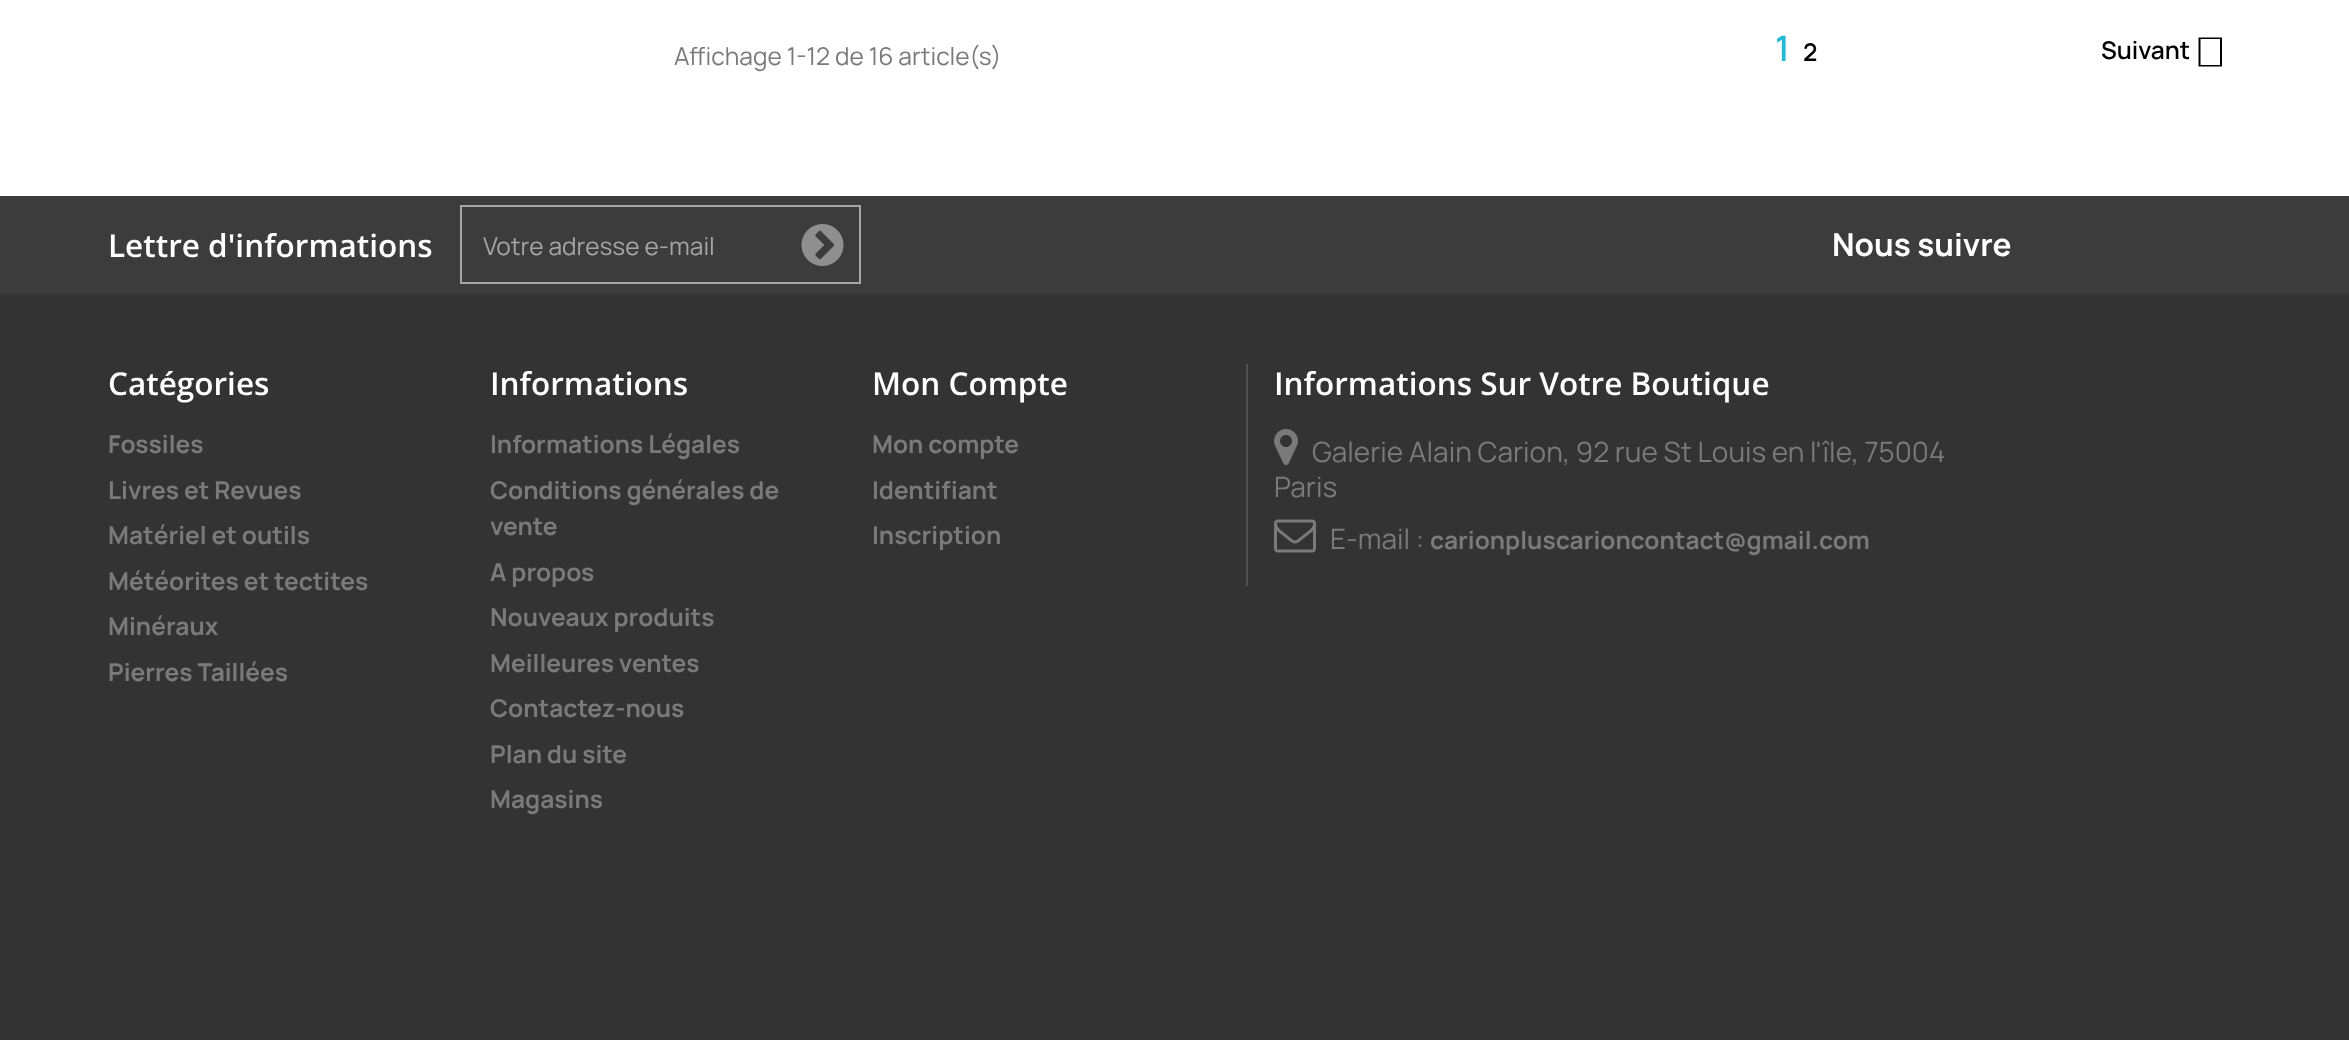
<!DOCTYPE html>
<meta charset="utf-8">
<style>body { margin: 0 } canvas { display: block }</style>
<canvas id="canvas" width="2349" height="1040"></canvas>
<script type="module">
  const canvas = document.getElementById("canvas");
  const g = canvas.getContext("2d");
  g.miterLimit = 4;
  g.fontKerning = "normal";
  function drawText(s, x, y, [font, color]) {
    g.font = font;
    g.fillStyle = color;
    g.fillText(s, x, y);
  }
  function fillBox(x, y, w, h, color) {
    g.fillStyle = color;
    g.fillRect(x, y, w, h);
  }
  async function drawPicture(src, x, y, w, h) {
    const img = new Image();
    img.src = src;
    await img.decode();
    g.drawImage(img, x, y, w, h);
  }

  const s1 = ["24.5px Manrope", "#7A7A7A"];
  const s2 = ["600 35px Manrope", "#24B9D7"];
  const s3 = ["600 24.5px Manrope", "#000000"];
  const s4 = ["600 31.5px Open Sans", "#FFFFFF"];
  const s5 = ["24.5px Manrope", "#A5A5A5"];
  const s6 = ["bold 31.5px Manrope", "#FFFFFF"];
  const s7 = ["bold 24.5px Manrope", "#7A7A7A"];
  const s8 = ["28px Manrope", "#7A7A7A"];

  fillBox(0, 0, 2349, 1040, "#FFFFFF");
  drawText("Affichage 1-12 de 16 article(s)", 674, 65, s1);
  g.letterSpacing = "4px";
  drawText("1", 1775, 61, s2);
  drawText("2", 1803, 61, s3);
  g.letterSpacing = "0px";
  drawText("Suivant", 2101, 59, s3);
  g.beginPath();
  g.moveTo(2198.5, 37.5);
  g.lineTo(2222, 37.5);
  g.lineTo(2222, 66.5);
  g.lineTo(2198.5, 66.5);
  g.closePath();
  g.moveTo(2200.5, 39);
  g.lineTo(2200.5, 65);
  g.lineTo(2220, 65);
  g.lineTo(2220, 39);
  g.closePath();
  g.fill();
  fillBox(0, 196, 2349, 98, "#3C3C3C");
  drawText("Lettre d'informations", 108, 257, s4);
  g.strokeStyle = "#A6A6A6";
  g.lineWidth = 2;
  g.strokeRect(461, 206, 399, 77);
  drawText("Votre adresse e-mail", 483, 255, s5);
  await drawPicture("pic1.png", 801, 224, 43, 42);
  drawText("Nous suivre", 1832, 256, s6);
  fillBox(0, 294, 2349, 746, "#333333");
  drawText("Catégories", 108, 395, s4);
  drawText("Fossiles", 108, 453, s7);
  drawText("Livres et Revues", 108, 499, s7);
  drawText("Matériel et outils", 108, 544, s7);
  drawText("Météorites et tectites", 108, 590, s7);
  drawText("Minéraux", 108, 635, s7);
  drawText("Pierres Taillées", 108, 681, s7);
  drawText("Informations", 490, 395, s4);
  drawText("Informations Légales", 490, 453, s7);
  drawText("Conditions générales de", 490, 499, s7);
  drawText("vente", 490, 535, s7);
  drawText("A propos", 490, 581, s7);
  drawText("Nouveaux produits", 490, 626, s7);
  drawText("Meilleures ventes", 490, 672, s7);
  drawText("Contactez-nous", 490, 717, s7);
  drawText("Plan du site", 490, 763, s7);
  drawText("Magasins", 490, 808, s7);
  drawText("Mon Compte", 872, 395, s4);
  drawText("Mon compte", 872, 453, s7);
  drawText("Identifiant", 872, 499, s7);
  drawText("Inscription", 872, 544, s7);
  fillBox(1246, 364, 2, 222, "#515151");
  drawText("Informations Sur Votre Boutique", 1274, 395, s4);
  await drawPicture("pic2.png", 1274, 429, 24, 36);
  drawText("Galerie Alain Carion, 92 rue St Louis en l'île, 75004", 1312, 462, s8);
  drawText("Paris", 1274, 497, s8);
  await drawPicture("pic3.png", 1274, 519, 42, 34);
  drawText("E-mail :", 1330, 549, s8);
  drawText("carionpluscarioncontact@gmail.com", 1430, 549, s7);
</script>
